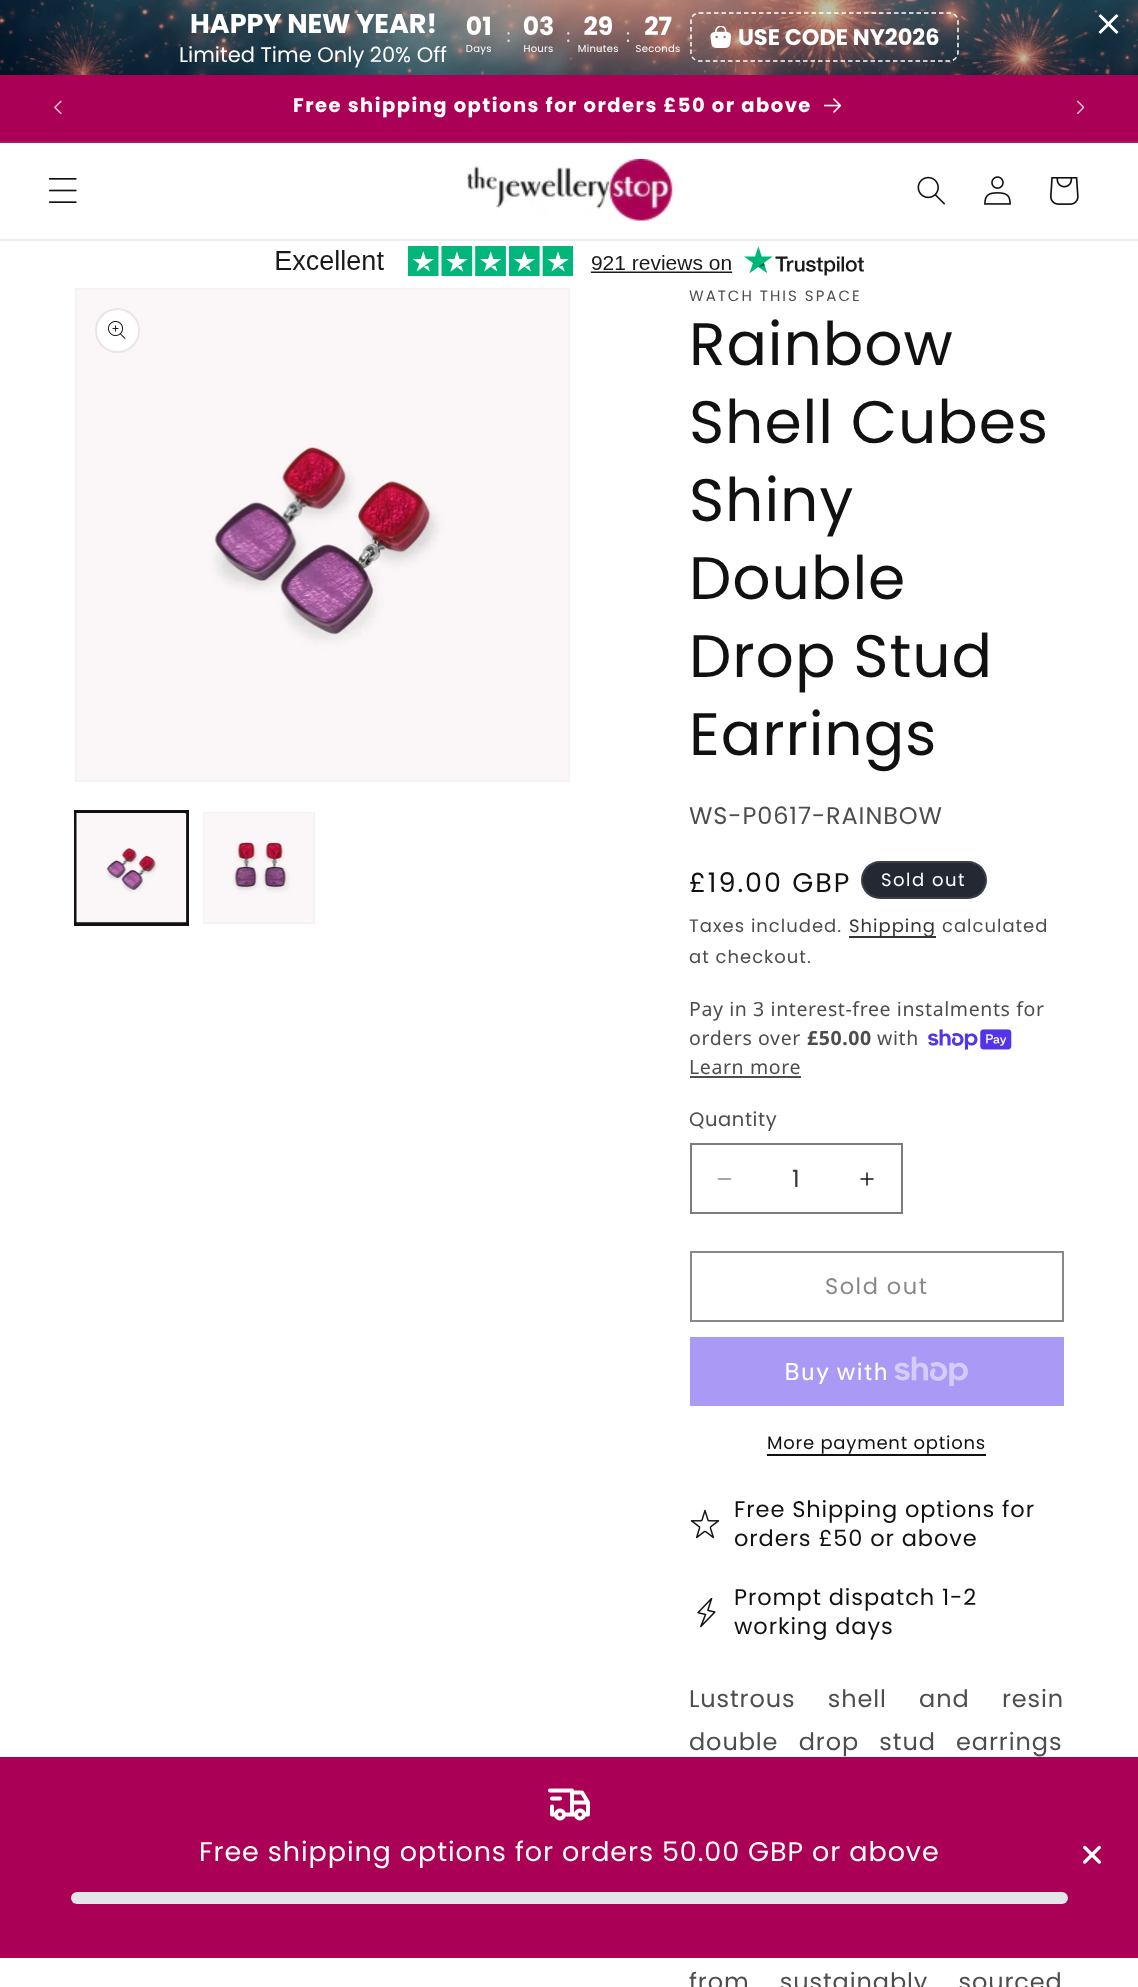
<!DOCTYPE html>
<meta charset="utf-8">
<style>body { margin: 0 } canvas { display: block }</style>
<canvas id="canvas" width="1138" height="1987"></canvas>
<script type="module">
  const canvas = document.getElementById("canvas");
  const g = canvas.getContext("2d");
  g.miterLimit = 4;
  g.fontKerning = "normal";
  function drawText(s, x, y, [font, color]) {
    g.font = font;
    g.fillStyle = color;
    g.fillText(s, x, y);
  }
  function fillBox(x, y, w, h, color) {
    g.fillStyle = color;
    g.fillRect(x, y, w, h);
  }
  function fillRounded(x, y, w, h, r, color) {
    g.fillStyle = color;
    g.beginPath();
    g.roundRect(x, y, w, h, r);
    g.fill();
  }
  async function drawPicture(src, x, y, w, h) {
    const img = new Image();
    img.src = src;
    await img.decode();
    g.drawImage(img, x, y, w, h);
  }

  const s1 = ["bold 27px Poppins", "#FFFFFF"];
  const s2 = ["21px Poppins", "#FFFFFF"];
  const s3 = ["bold 22.5px Poppins", "#FFFFFF"];
  const s4 = ["bold 19.5px Poppins", "#FFFFFF"];
  const s5 = ["15px Poppins", "#4D4D4D"];
  const s6 = ["60px Poppins", "#111111"];
  const s7 = ["24px Poppins", "#4D4D4D"];
  const s8 = ["27px Poppins", "#111111"];
  const s9 = ["18px Poppins", "#FFFFFF"];
  const s10 = ["18px Poppins", "#4D4D4D"];
  const s11 = ["18px Poppins", "#343434"];
  const s12 = ["19.5px Noto Sans", "#4D4D4D"];
  const s13 = ["bold 19.5px Noto Sans", "#4D4D4D"];
  const s14 = ["19.5px Poppins", "#4D4D4D"];
  const s15 = ["24px Poppins", "#343434"];
  const s16 = ["22.5px Poppins", "#888888"];
  const s17 = ["24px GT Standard", "#FFFFFF"];
  const s18 = ["18px Poppins", "#111111"];
  const s19 = ["22.5px Poppins", "#111111"];
  const s20 = ["27px Poppins", "#FFFFFF"];

  fillBox(0, 0, 1138, 1987, "#FFFFFF");
  await drawPicture("pic1.png", 0, 0, 1138, 75);
  drawText("HAPPY NEW YEAR!", 190, 33, s1);
  drawText("Limited Time Only 20% Off", 179, 62, s2);
  await drawPicture("pic2.png", 466, 16, 214, 39);
  g.beginPath();
  g.moveTo(699, 13);
  g.lineTo(949.5, 13);
  g.bezierCurveTo(954, 13, 958, 16.5, 958, 21);
  g.lineTo(958, 52.5);
  g.bezierCurveTo(958, 57, 954, 61, 949.5, 61);
  g.lineTo(699, 61);
  g.bezierCurveTo(694.5, 61, 691, 57, 691, 52.5);
  g.lineTo(691, 21);
  g.bezierCurveTo(691, 16.5, 694.5, 13, 699, 13);
  g.closePath();
  g.strokeStyle = "#FFFFFF";
  g.lineWidth = 1.5;
  g.setLineDash([4.5, 3]);
  g.stroke();
  await drawPicture("pic3.png", 710, 26, 22, 22);
  drawText("USE CODE NY2026", 738, 45, s3);
  g.beginPath();
  g.moveTo(1117.5, 15);
  g.lineTo(1099.5, 33);
  g.moveTo(1117.5, 33);
  g.lineTo(1099.5, 15);
  g.lineWidth = 3;
  g.setLineDash([]);
  g.stroke();
  fillBox(0, 75, 1138, 66, "#AA0055");
  fillBox(0, 141, 1138, 2, "#B11463");
  await drawPicture("pic4.png", 54, 100, 8, 14);
  g.letterSpacing = "1.5px";
  drawText("Free shipping options for orders £50 or above", 293, 112, s4);
  await drawPicture("pic5.png", 824, 98, 18, 15);
  await drawPicture("pic6.png", 1076, 100, 9, 15);
  fillBox(0, 239, 1138, 2, "#ECECEC");
  await drawPicture("pic7.png", 48, 178, 29, 25);
  await drawPicture("pic8.png", 466, 159, 209, 62);
  await drawPicture("pic9.png", 917, 176, 28, 29);
  await drawPicture("pic10.png", 984, 176, 27, 29);
  await drawPicture("pic11.png", 1050, 177, 29, 28);
  await drawPicture("pic12.png", 276, 246, 588, 30);
  g.strokeStyle = "#F3F3F3";
  g.lineWidth = 2;
  g.strokeRect(76, 289, 493, 492);
  await drawPicture("pic13.png", 76, 289, 493, 491);
  g.fillStyle = "#FFFFFF";
  g.beginPath();
  g.arc(117.5, 330.5, 22.5, 0, Math.PI * 2);
  g.fill();
  g.beginPath();
  g.arc(117.5, 330.5, 21.5, 0, Math.PI * 2);
  g.strokeStyle = "rgba(17, 17, 17, 0.1)";
  g.stroke();
  await drawPicture("pic14.png", 108, 321, 18, 18);
  g.strokeStyle = "#111111";
  g.strokeRect(75, 811, 113, 114);
  g.strokeRect(76, 813, 111, 110);
  await drawPicture("pic15.png", 76, 813, 111, 110);
  g.strokeStyle = "#F3F3F3";
  g.strokeRect(204, 813, 110, 110);
  await drawPicture("pic16.png", 204, 813, 110, 109);
  g.letterSpacing = "2px";
  drawText("WATCH THIS SPACE", 689, 301, s5);
  g.letterSpacing = "0.9px";
  drawText("Rainbow", 689, 365, s6);
  drawText("Shell Cubes", 689, 443, s6);
  drawText("Shiny", 689, 521, s6);
  drawText("Double", 689, 599, s6);
  drawText("Drop Stud", 689, 677, s6);
  drawText("Earrings", 689, 755, s6);
  drawText("WS-P0617-RAINBOW", 689, 824, s7);
  g.letterSpacing = "2px";
  drawText("£19.00 GBP", 689, 892, s8);
  fillRounded(861, 861, 126, 38, 19, "#242833");
  g.beginPath();
  g.roundRect(862, 862, 124, 36, 18);
  g.strokeStyle = "rgba(255, 255, 255, 0.1)";
  g.stroke();
  g.letterSpacing = "1.5px";
  drawText("Sold out", 881, 886, s9);
  g.letterSpacing = "1px";
  drawText("Taxes included.", 689, 932, s10);
  fillBox(849, 936, 87, 2, "#353535");
  drawText("Shipping", 849, 932, s11);
  drawText("calculated", 942, 932, s10);
  drawText("at checkout.", 689, 963, s10);
  g.letterSpacing = "0.6px";
  drawText("Pay in 3 interest-free instalments for", 689, 1016, s12);
  drawText("orders over", 689, 1045, s12);
  drawText("£50.00", 807, 1045, s13);
  drawText("with", 877, 1045, s12);
  await drawPicture("pic17.png", 928, 1029, 84, 21);
  drawText("Learn more", 689, 1074, s12);
  fillBox(690, 1076, 111, 2, "#4D4D4D");
  drawText("Quantity", 689, 1126, s14);
  await drawPicture("pic18.png", 717, 1178, 15, 2);
  await drawPicture("pic19.png", 860, 1172, 14, 14);
  g.strokeStyle = "#7C7C7C";
  g.strokeRect(691, 1144, 211, 69);
  g.letterSpacing = "0px";
  drawText("1", 792, 1187, s15);
  g.strokeStyle = "#888888";
  g.strokeRect(691, 1252, 372, 69);
  g.letterSpacing = "1.5px";
  drawText("Sold out", 825, 1294, s16);
  fillBox(690, 1337, 374, 69, "#AA99F5");
  g.letterSpacing = "0.9px";
  drawText("Buy with", 784, 1380, s17);
  await drawPicture("pic20.png", 894, 1356, 74, 30);
  g.letterSpacing = "0.75px";
  drawText("More payment options", 767, 1449, s18);
  fillBox(767, 1454, 219, 2, "#111111");
  await drawPicture("pic21.png", 690, 1509, 30, 30);
  g.letterSpacing = "0.9px";
  drawText("Free Shipping options for", 734, 1517, s19);
  drawText("orders £50 or above", 734, 1546, s19);
  await drawPicture("pic22.png", 697, 1598, 19, 30);
  drawText("Prompt dispatch 1-2", 734, 1605, s19);
  drawText("working days", 734, 1634, s19);
  g.wordSpacing = "25px";
  drawText("Lustrous shell and resin", 689, 1707, s7);
  g.wordSpacing = "13px";
  drawText("double drop stud earrings", 689, 1750, s7);
  g.wordSpacing = "23px";
  drawText("from sustainably sourced", 689, 1990, s7);
  fillBox(0, 1757, 1138, 201, "#AA0055");
  await drawPicture("pic23.png", 548, 1788, 42, 33);
  g.wordSpacing = "0px";
  drawText("Free shipping options for orders 50.00 GBP or above", 199, 1861, s20);
  await drawPicture("pic24.png", 1083, 1845, 18, 19);
  fillRounded(71, 1892, 997, 12, 6, "#E4E5E7");
</script>
